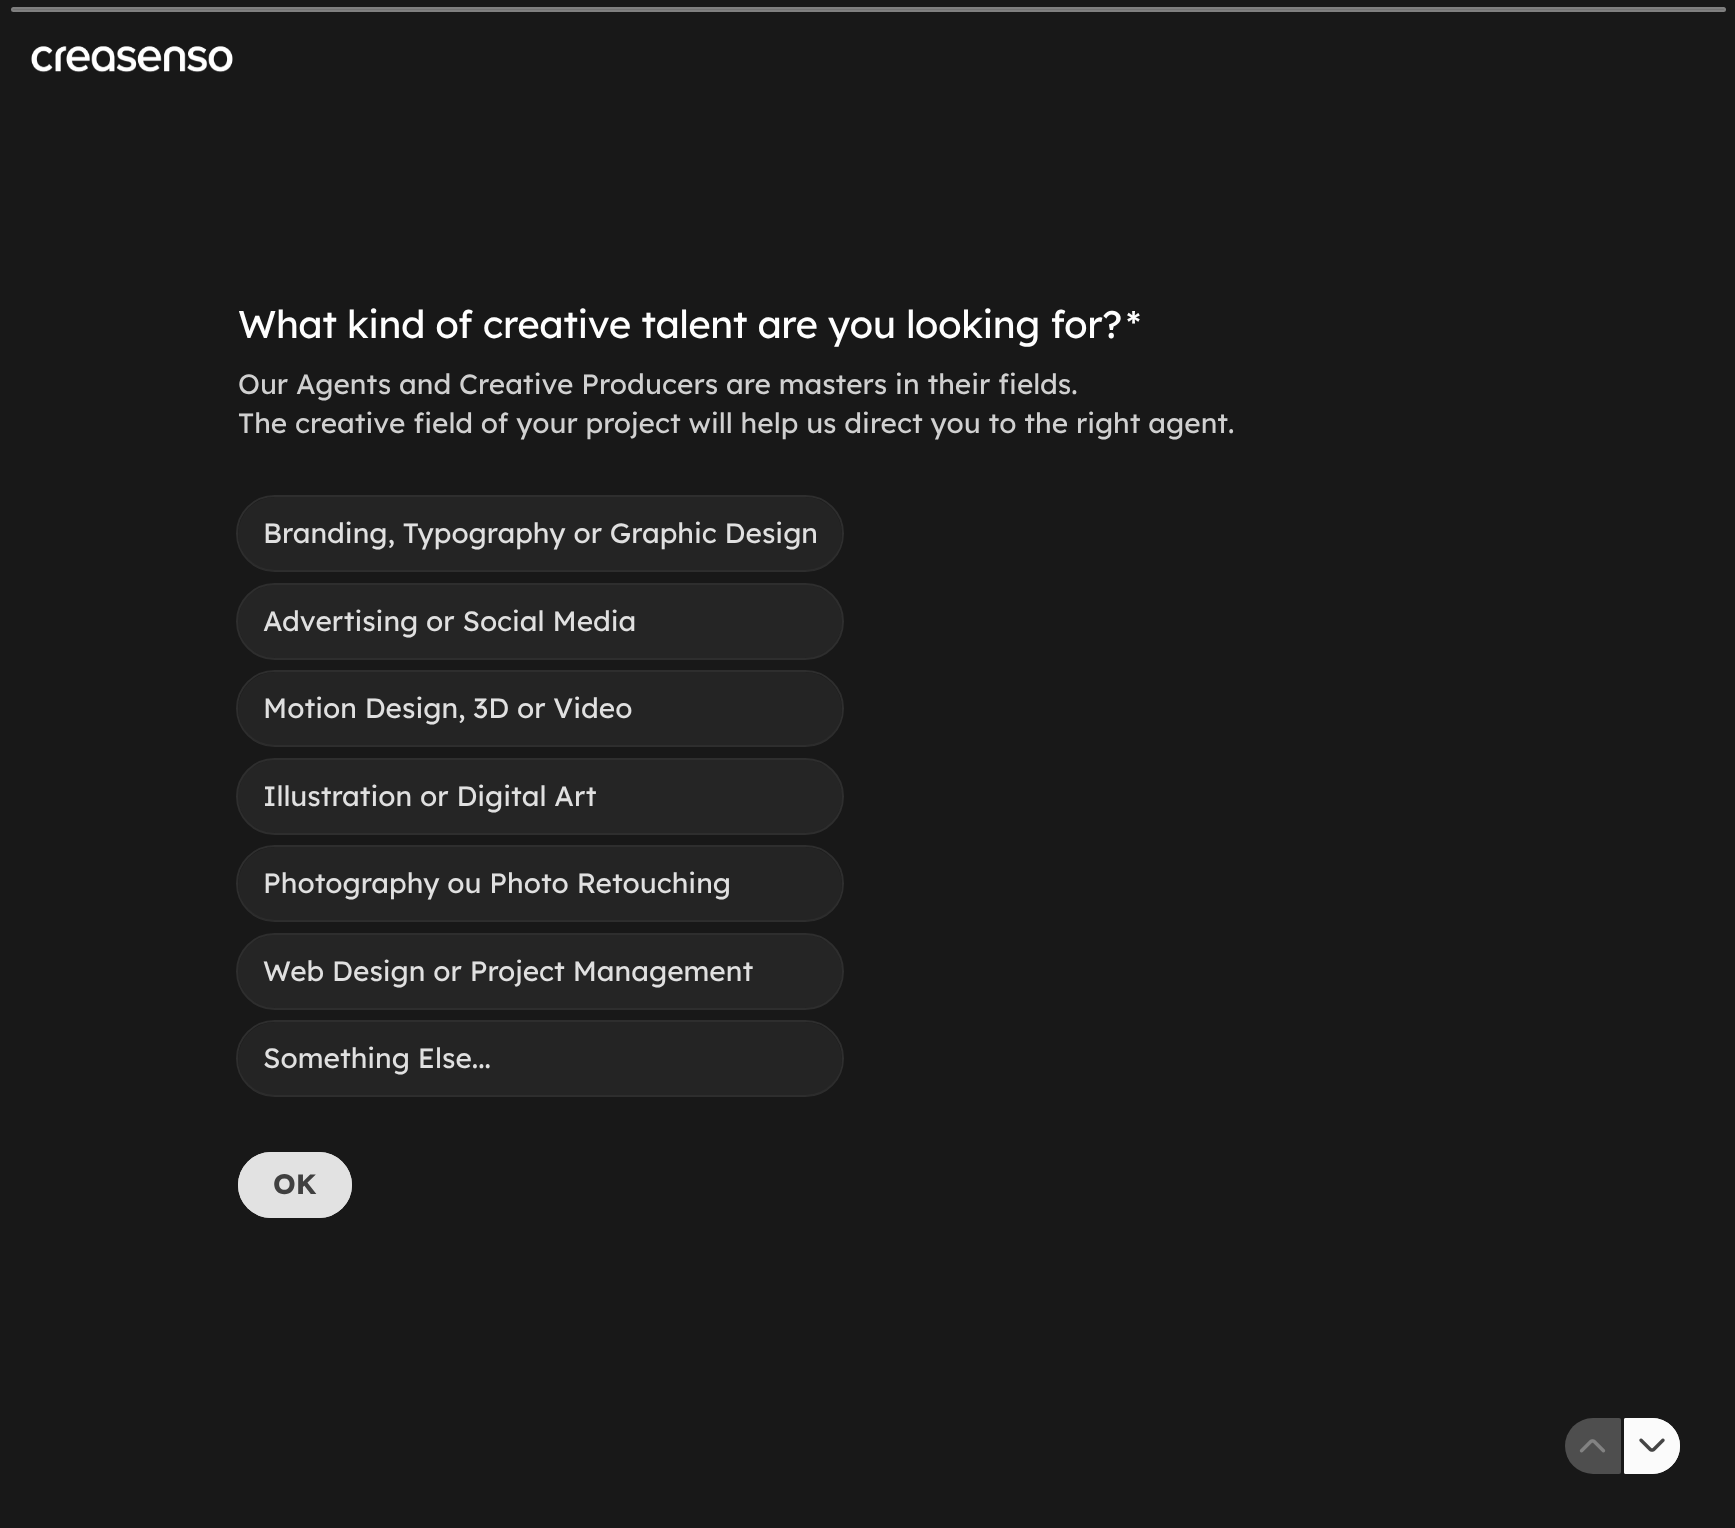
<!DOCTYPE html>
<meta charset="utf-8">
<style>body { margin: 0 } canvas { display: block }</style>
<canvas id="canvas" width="1735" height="1528"></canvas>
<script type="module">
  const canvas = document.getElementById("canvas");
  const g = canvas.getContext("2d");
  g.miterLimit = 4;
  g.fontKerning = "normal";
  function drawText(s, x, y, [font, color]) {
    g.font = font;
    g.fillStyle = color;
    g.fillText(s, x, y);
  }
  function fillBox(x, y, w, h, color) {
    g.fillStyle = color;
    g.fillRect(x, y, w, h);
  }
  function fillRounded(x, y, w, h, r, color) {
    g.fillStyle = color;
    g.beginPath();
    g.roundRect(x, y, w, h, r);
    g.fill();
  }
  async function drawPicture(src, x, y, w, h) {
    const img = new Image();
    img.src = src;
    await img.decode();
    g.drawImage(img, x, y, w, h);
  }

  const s1 = ["38.5px Lexend", "#FEFEFE"];
  const s2 = ["28px Lexend", "#D0D0D0"];
  const s3 = ["28px Lexend", "#E0E0E0"];
  const s4 = ["bold 28px Lexend", "#404040"];

  fillBox(0, 0, 1735, 1528, "#181818");
  fillRounded(11, 7, 1715, 5, 2.5, "#727272");
  g.beginPath();
  g.roundRect(12, 8, 1713, 3, 1.5);
  g.strokeStyle = "rgba(249, 249, 249, 0.1)";
  g.lineWidth = 2;
  g.stroke();
  await drawPicture("pic1.png", 31, 46, 202, 27);
  g.letterSpacing = "-0.45px";
  drawText("What kind of creative talent are you looking for?", 238, 338, s1);
  drawText("*", 1126, 338, s1);
  g.letterSpacing = "0px";
  drawText("Our Agents and Creative Producers are masters in their fields.", 238, 394, s2);
  drawText("The creative field of your project will help us direct you to the right agent.", 238, 433, s2);
  g.beginPath();
  g.roundRect(237, 496, 606, 75, 37.5);
  g.strokeStyle = "#2E2E2E";
  g.stroke();
  g.fillStyle = "rgba(24, 24, 24, 0.6)";
  g.filter = "blur(0.5px)";
  g.beginPath();
  g.roundRect(238, 497, 604, 74, 37);
  g.fill();
  g.filter = "none";
  g.fillStyle = "rgba(247, 247, 247, 0.06)";
  g.filter = "blur(0.5px)";
  g.beginPath();
  g.roundRect(238, 497, 604, 74, 37);
  g.fill();
  g.filter = "none";
  drawText("Branding, Typography or Graphic Design", 263, 543, s3);
  g.beginPath();
  g.roundRect(237, 584, 606, 75, 37.5);
  g.stroke();
  g.fillStyle = "rgba(247, 247, 247, 0.06)";
  g.filter = "blur(0.5px)";
  g.beginPath();
  g.roundRect(238, 585, 604, 73, 36.5);
  g.fill();
  g.filter = "none";
  drawText("Advertising or Social Media", 263, 631, s3);
  g.beginPath();
  g.roundRect(237, 671, 606, 75, 37.5);
  g.stroke();
  g.fillStyle = "rgba(24, 24, 24, 0.6)";
  g.filter = "blur(0.5px)";
  g.beginPath();
  g.roundRect(238, 672, 604, 74, 37);
  g.fill();
  g.filter = "none";
  g.fillStyle = "rgba(247, 247, 247, 0.06)";
  g.filter = "blur(0.5px)";
  g.beginPath();
  g.roundRect(238, 672, 604, 74, 37);
  g.fill();
  g.filter = "none";
  drawText("Motion Design, 3D or Video", 263, 718, s3);
  g.beginPath();
  g.roundRect(237, 759, 606, 75, 37.5);
  g.stroke();
  g.fillStyle = "rgba(247, 247, 247, 0.06)";
  g.filter = "blur(0.5px)";
  g.beginPath();
  g.roundRect(238, 760, 604, 73, 36.5);
  g.fill();
  g.filter = "none";
  drawText("Illustration or Digital Art", 263, 806, s3);
  g.beginPath();
  g.roundRect(237, 846, 606, 75, 37.5);
  g.stroke();
  g.fillStyle = "rgba(24, 24, 24, 0.6)";
  g.filter = "blur(0.5px)";
  g.beginPath();
  g.roundRect(238, 847, 604, 74, 37);
  g.fill();
  g.filter = "none";
  g.fillStyle = "rgba(247, 247, 247, 0.06)";
  g.filter = "blur(0.5px)";
  g.beginPath();
  g.roundRect(238, 847, 604, 74, 37);
  g.fill();
  g.filter = "none";
  drawText("Photography ou Photo Retouching", 263, 893, s3);
  g.beginPath();
  g.roundRect(237, 934, 606, 75, 37.5);
  g.stroke();
  g.fillStyle = "rgba(247, 247, 247, 0.06)";
  g.filter = "blur(0.5px)";
  g.beginPath();
  g.roundRect(238, 935, 604, 73, 36.5);
  g.fill();
  g.filter = "none";
  drawText("Web Design or Project Management", 263, 981, s3);
  g.beginPath();
  g.roundRect(237, 1021, 606, 75, 37.5);
  g.stroke();
  g.fillStyle = "rgba(24, 24, 24, 0.6)";
  g.filter = "blur(0.5px)";
  g.beginPath();
  g.roundRect(238, 1022, 604, 74, 37);
  g.fill();
  g.filter = "none";
  g.fillStyle = "rgba(247, 247, 247, 0.06)";
  g.filter = "blur(0.5px)";
  g.beginPath();
  g.roundRect(238, 1022, 604, 74, 37);
  g.fill();
  g.filter = "none";
  drawText("Something Else...", 263, 1068, s3);
  g.beginPath();
  g.roundRect(239, 1153, 112, 64, 32);
  g.strokeStyle = "#E2E2E2";
  g.stroke();
  g.fillStyle = "#E2E2E2";
  g.filter = "blur(0.5px)";
  g.beginPath();
  g.roundRect(238, 1152, 114, 66, 33);
  g.fill();
  g.filter = "none";
  drawText("OK", 273, 1194, s4);
  g.fillStyle = "#4E4E4E";
  g.beginPath();
  g.roundRect(1565, 1418, 56, 56, [28, 2, 2, 28]);
  g.fill();
  await drawPicture("pic2.png", 1579, 1439, 27, 14);
  g.beginPath();
  g.roundRect(1625, 1419, 54, 54, [1, 27, 27, 1]);
  g.strokeStyle = "#FBFBFB";
  g.stroke();
  g.fillStyle = "#FBFBFB";
  g.beginPath();
  g.roundRect(1624, 1418, 56, 56, [2, 28, 28, 2]);
  g.fill();
  await drawPicture("pic3.png", 1639, 1438, 26, 14);
</script>
